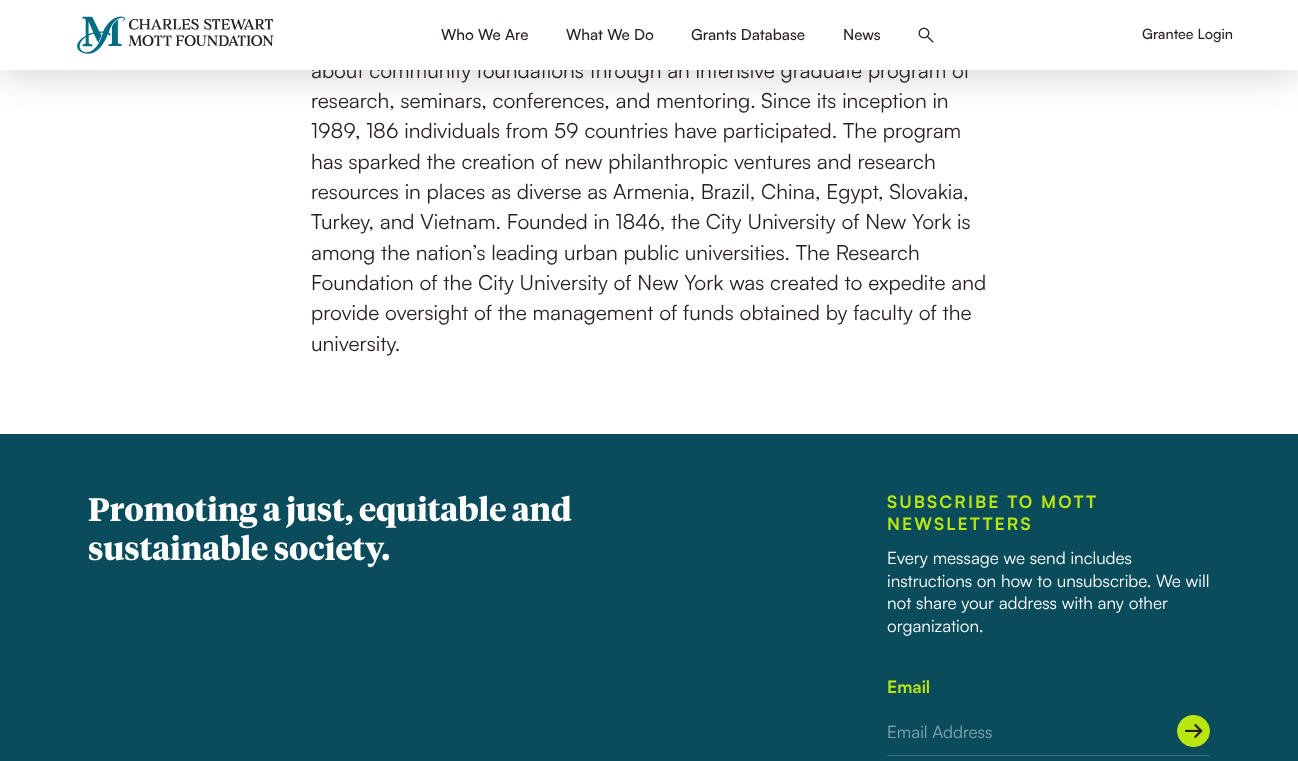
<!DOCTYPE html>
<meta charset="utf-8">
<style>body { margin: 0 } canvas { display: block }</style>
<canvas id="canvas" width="1298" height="761"></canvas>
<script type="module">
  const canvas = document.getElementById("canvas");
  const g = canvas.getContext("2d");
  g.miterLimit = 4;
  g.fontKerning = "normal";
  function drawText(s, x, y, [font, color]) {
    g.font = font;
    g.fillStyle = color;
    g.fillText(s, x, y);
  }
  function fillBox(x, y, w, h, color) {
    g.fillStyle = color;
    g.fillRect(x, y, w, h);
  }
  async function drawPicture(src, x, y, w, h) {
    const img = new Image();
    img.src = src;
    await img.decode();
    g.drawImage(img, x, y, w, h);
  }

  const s1 = ["20.9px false", "#291F1E"];
  const s2 = ["500 15.25px Satoshi", "#291F1E"];
  const s3 = ["500 14.25px Satoshi", "#291F1E"];
  const s4 = ["bold 32.25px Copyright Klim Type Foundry", "#FFFFFF"];
  const s5 = ["bold 17.1px false", "#BBE711"];
  const s6 = ["17.1px false", "#FFFFFF"];
  const s7 = ["17.1px false", "#85A6AD"];

  fillBox(0, 0, 1298, 761, "#FFFFFF");
  g.fillStyle = "rgba(41, 31, 30, 0.2)";
  g.filter = "blur(19px)";
  g.beginPath();
  g.rect(0, 4, 1298, 70);
  g.fill();
  g.filter = "none";
  drawText("about community foundations through an intensive graduate program of", 311, 78, s1);
  fillBox(0, 0, 1298, 70, "#FFFFFF");
  await drawPicture("pic1.png", 77, 16, 197, 38);
  drawText("Who We Are", 441, 40, s2);
  drawText("What We Do", 566, 40, s2);
  drawText("Grants Database", 691, 40, s2);
  drawText("News", 843, 40, s2);
  await drawPicture("pic2.png", 918, 27, 16, 16);
  drawText("Grantee Login", 1142, 39, s3);
  drawText("research, seminars, conferences, and mentoring.", 311, 108, s1);
  drawText("Since its inception in", 761, 108, s1);
  drawText("1989, 186 individuals from 59 countries have participated. The program", 311, 138, s1);
  drawText("has sparked the creation of new philanthropic ventures and research", 311, 169, s1);
  drawText("resources in places as diverse as Armenia, Brazil, China, Egypt, Slovakia,", 311, 199, s1);
  drawText("Turkey, and Vietnam. Founded in 1846, the City University of New York is", 311, 229, s1);
  drawText("among the nation’s leading urban public universities. The Research", 311, 260, s1);
  drawText("Foundation of the City University of New York was created to expedite and", 311, 290, s1);
  drawText("provide oversight of the management of funds obtained by faculty of the", 311, 320, s1);
  drawText("university.", 311, 351, s1);
  fillBox(0, 434, 1298, 327, "#0A4C5B");
  drawText("Promoting a just, equitable and", 88, 521, s4);
  drawText("sustainable society.", 88, 560, s4);
  g.letterSpacing = "2.1px";
  drawText("SUBSCRIBE TO MOTT", 887, 508, s5);
  drawText("NEWSLETTERS", 887, 530, s5);
  g.letterSpacing = "0px";
  drawText("Every message we send includes", 887, 564, s6);
  drawText("instructions on how to unsubscribe. We will", 887, 587, s6);
  drawText("not share your address with any other", 887, 609, s6);
  drawText("organization.", 887, 632, s6);
  drawText("Email", 887, 693, s5);
  fillBox(887, 755, 323, 1, "#3B707C");
  drawText("Email Address", 887, 738, s7);
  g.fillStyle = "#BBE711";
  g.beginPath();
  g.roundRect(1177.5, 715.5, 32, 31, 15.5);
  g.fill();
  g.strokeStyle = "#BBE711";
  g.stroke();
  await drawPicture("pic3.png", 1185, 723, 18, 15);
</script>
